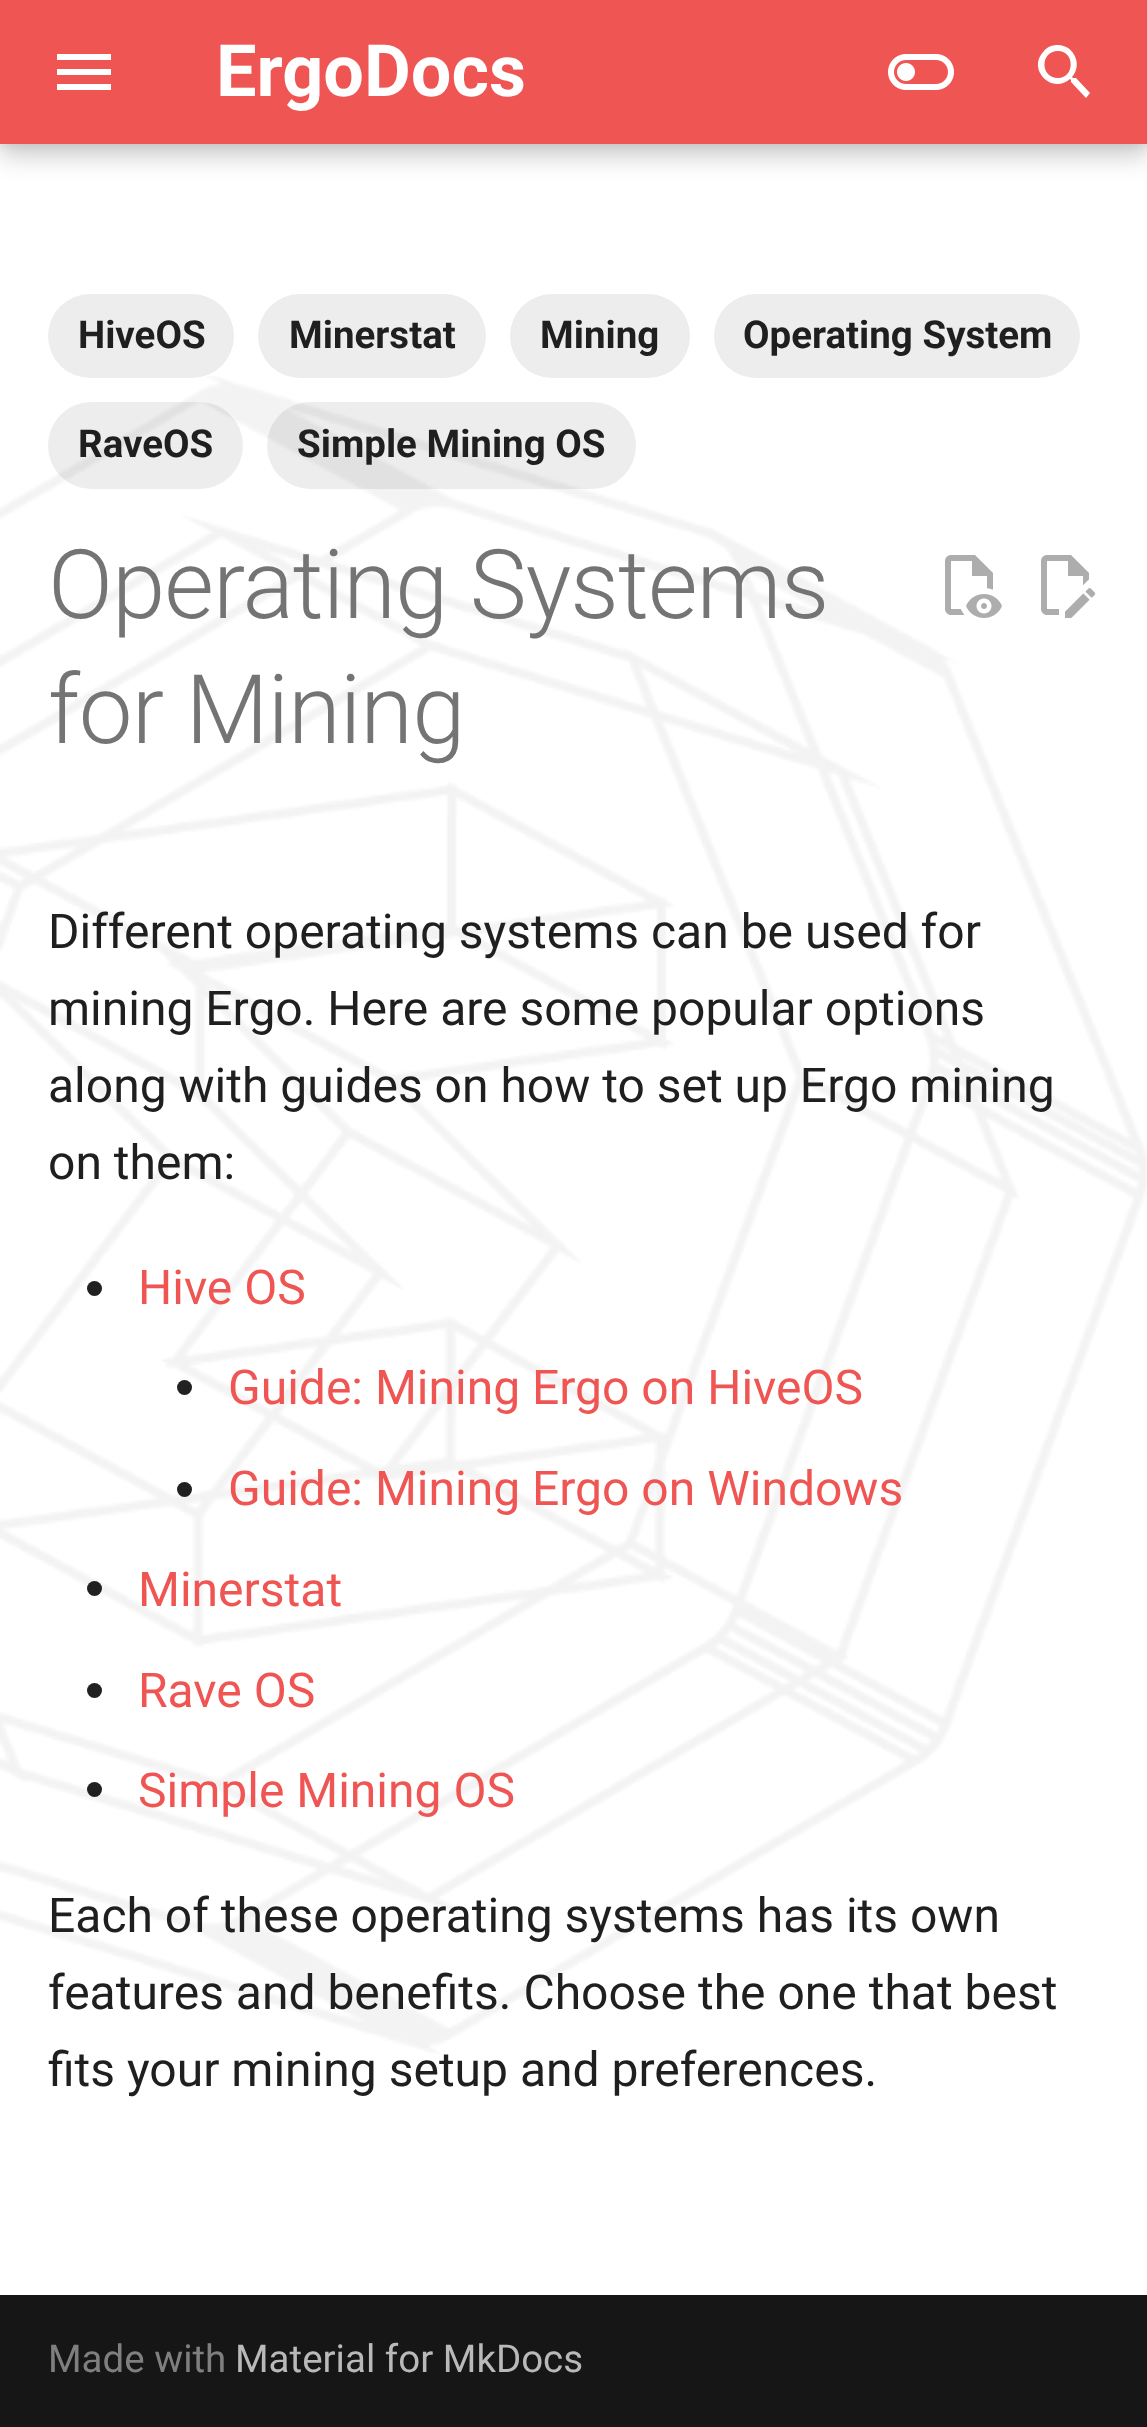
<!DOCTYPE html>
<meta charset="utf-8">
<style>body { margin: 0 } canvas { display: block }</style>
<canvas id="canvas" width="1147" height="2427"></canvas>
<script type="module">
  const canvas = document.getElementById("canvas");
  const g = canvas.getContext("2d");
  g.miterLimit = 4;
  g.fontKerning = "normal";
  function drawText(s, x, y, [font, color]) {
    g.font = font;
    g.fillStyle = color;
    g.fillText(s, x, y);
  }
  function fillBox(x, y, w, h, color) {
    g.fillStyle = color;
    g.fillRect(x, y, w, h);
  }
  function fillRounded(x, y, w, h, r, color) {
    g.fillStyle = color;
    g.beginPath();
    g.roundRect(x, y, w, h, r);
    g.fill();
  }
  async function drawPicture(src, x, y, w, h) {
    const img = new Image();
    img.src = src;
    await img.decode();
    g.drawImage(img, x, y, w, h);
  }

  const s1 = ["bold 72px Roboto", "#FFFFFF"];
  const s2 = ["bold 38.5px Roboto", "#1F1F1F"];
  const s3 = ["300 96px Roboto", "#747474"];
  const s4 = ["48px Roboto", "#1F1F1F"];
  const s5 = ["48px Roboto", "#EF5552"];
  const s6 = ["38.5px Roboto", "#7F7F7F"];
  const s7 = ["38.5px Roboto", "#B9B9B9"];

  fillBox(0, 0, 1147, 2427, "#FFFFFF");
  await drawPicture("pic1.png", 0, 376, 1147, 1678);
  g.fillStyle = "rgba(0, 0, 0, 0.2)";
  g.filter = "blur(12px)";
  g.beginPath();
  g.rect(0, 12, 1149, 144);
  g.fill();
  g.filter = "none";
  g.fillStyle = "rgba(0, 0, 0, 0.1)";
  g.filter = "blur(6px)";
  g.beginPath();
  g.rect(0, 0, 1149, 144);
  g.fill();
  g.filter = "none";
  fillBox(0, 0, 1147, 144, "#EF5552");
  g.fillStyle = "#FFFFFF";
  g.beginPath();
  g.moveTo(57, 54);
  g.lineTo(111, 54);
  g.lineTo(111, 60);
  g.lineTo(57, 60);
  g.closePath();
  g.moveTo(57, 69);
  g.lineTo(111, 69);
  g.lineTo(111, 75);
  g.lineTo(57, 75);
  g.closePath();
  g.moveTo(57, 84);
  g.lineTo(111, 84);
  g.lineTo(111, 90);
  g.lineTo(57, 90);
  g.closePath();
  g.fill();
  drawText("ErgoDocs", 216, 96, s1);
  await drawPicture("pic2.png", 888, 54, 66, 36);
  g.beginPath();
  g.moveTo(1058, 45);
  g.bezierCurveTo(1074, 45, 1083, 65, 1072, 77);
  g.lineTo(1073, 78);
  g.lineTo(1076, 78);
  g.lineTo(1090, 93);
  g.lineTo(1086, 98);
  g.lineTo(1071, 82);
  g.lineTo(1071, 80);
  g.lineTo(1070, 79);
  g.bezierCurveTo(1052, 95, 1026, 69, 1044, 51);
  g.bezierCurveTo(1047, 47, 1052, 45, 1058, 45);
  g.moveTo(1058, 51);
  g.bezierCurveTo(1040, 51, 1040, 78, 1058, 78);
  g.bezierCurveTo(1075, 78, 1075, 51, 1058, 51);
  g.fill();
  fillRounded(48, 294, 186, 84, 42, "#EDEDED");
  drawText("HiveOS", 78, 348, s2);
  fillRounded(258, 294, 228, 84, 42, "#EDEDED");
  drawText("Minerstat", 289, 348, s2);
  fillRounded(510, 294, 180, 84, 42, "#EDEDED");
  drawText("Mining", 540, 348, s2);
  fillRounded(714, 294, 366, 84, 42, "#EDEDED");
  drawText("Operating System", 743, 348, s2);
  fillRounded(48, 402, 195, 87, 43.5, "rgba(0, 0, 0, 0.07)");
  drawText("RaveOS", 78, 457, s2);
  fillRounded(267, 402, 369, 87, 43.5, "rgba(0, 0, 0, 0.07)");
  drawText("Simple Mining OS", 297, 457, s2);
  g.letterSpacing = "-1px";
  drawText("Operating Systems", 48, 618, s3);
  drawText("for Mining", 48, 743, s3);
  await drawPicture("pic3.png", 945, 555, 57, 63);
  await drawPicture("pic4.png", 1041, 555, 55, 63);
  g.letterSpacing = "0px";
  drawText("Different operating systems can be used for", 48, 948, s4);
  drawText("mining Ergo. Here are some popular options", 48, 1025, s4);
  drawText("along with guides on how to set up Ergo mining", 48, 1102, s4);
  drawText("on them:", 48, 1179, s4);
  g.fillStyle = "#212121";
  g.beginPath();
  g.arc(94.5, 1288.5, 7.5, 0, Math.PI * 2);
  g.fill();
  drawText("Hive OS", 138, 1304, s5);
  g.fillStyle = "#212121";
  g.beginPath();
  g.arc(184.5, 1387.5, 7.5, 0, Math.PI * 2);
  g.fill();
  drawText("Guide: Mining Ergo on HiveOS", 228, 1404, s5);
  g.fillStyle = "rgba(0, 0, 0, 0.87)";
  g.beginPath();
  g.arc(184.5, 1489.5, 7.5, 0, Math.PI * 2);
  g.fill();
  drawText("Guide: Mining Ergo on Windows", 228, 1505, s5);
  g.fillStyle = "rgba(0, 0, 0, 0.87)";
  g.beginPath();
  g.arc(94.5, 1588.5, 7.5, 0, Math.PI * 2);
  g.fill();
  drawText("Minerstat", 138, 1606, s5);
  g.fillStyle = "#212121";
  g.beginPath();
  g.arc(94.5, 1690.5, 7.5, 0, Math.PI * 2);
  g.fill();
  drawText("Rave OS", 138, 1707, s5);
  g.fillStyle = "rgba(0, 0, 0, 0.87)";
  g.beginPath();
  g.arc(94.5, 1789.5, 7.5, 0, Math.PI * 2);
  g.fill();
  drawText("Simple Mining OS", 138, 1807, s5);
  drawText("Each of these operating systems has its own", 48, 1932, s4);
  drawText("features and benefits. Choose the one that best", 48, 2009, s4);
  drawText("fits your mining setup and preferences.", 48, 2086, s4);
  fillBox(0, 2295, 1147, 132, "#161616");
  drawText("Made with", 48, 2372, s6);
  drawText("Material for MkDocs", 235, 2372, s7);
</script>
